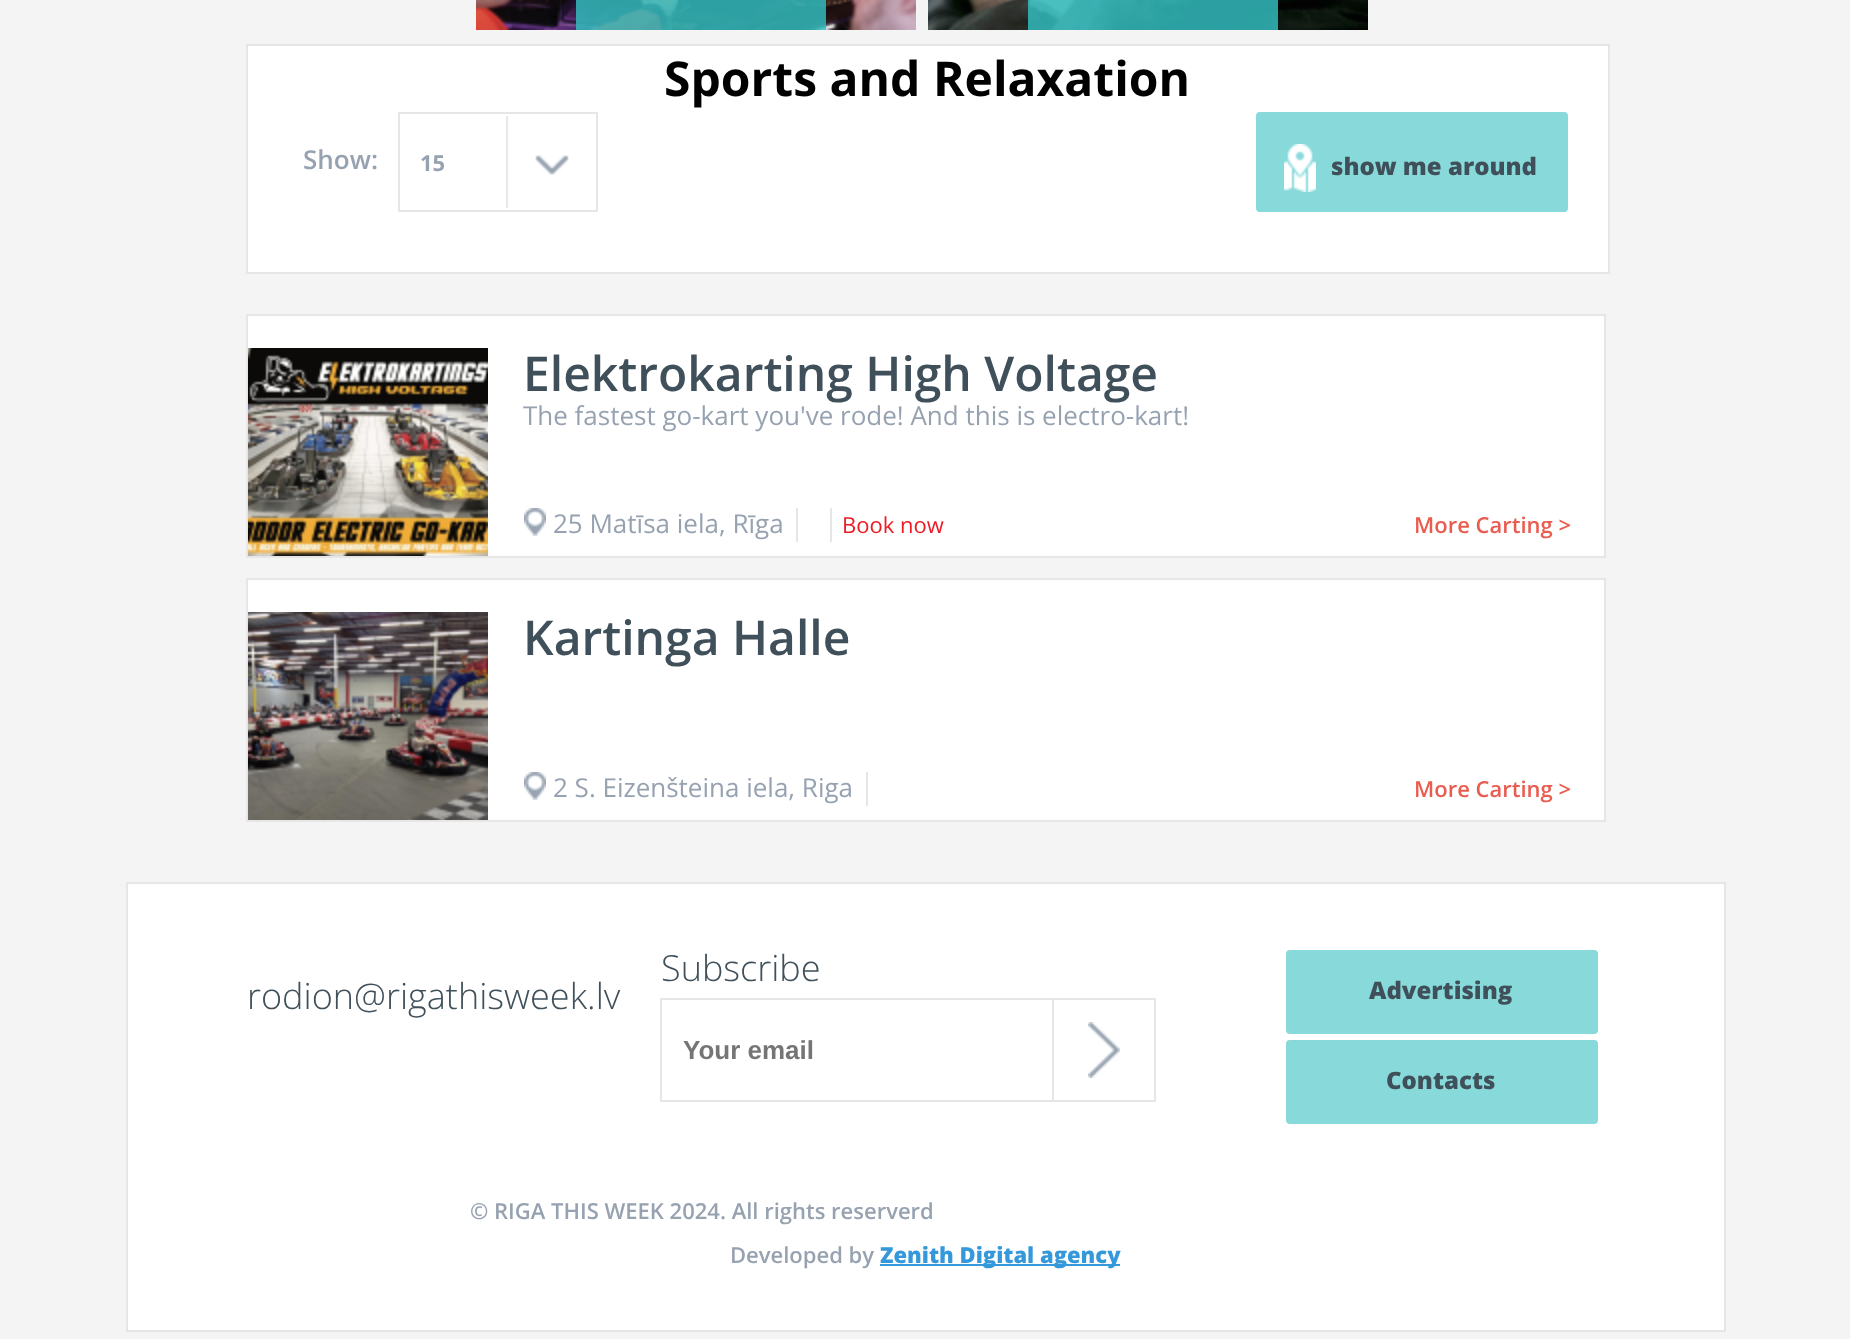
<!DOCTYPE html>
<meta charset="utf-8">
<style>body { margin: 0 } canvas { display: block }</style>
<canvas id="canvas" width="1850" height="1339"></canvas>
<script type="module">
  const canvas = document.getElementById("canvas");
  const g = canvas.getContext("2d");
  g.miterLimit = 4;
  g.fontKerning = "normal";
  function drawText(s, x, y, [font, color]) {
    g.font = font;
    g.fillStyle = color;
    g.fillText(s, x, y);
  }
  function fillBox(x, y, w, h, color) {
    g.fillStyle = color;
    g.fillRect(x, y, w, h);
  }
  function fillRounded(x, y, w, h, r, color) {
    g.fillStyle = color;
    g.beginPath();
    g.roundRect(x, y, w, h, r);
    g.fill();
  }
  async function drawPicture(src, x, y, w, h) {
    const img = new Image();
    img.src = src;
    await img.decode();
    g.drawImage(img, x, y, w, h);
  }

  const s1 = ["bold 48px Open Sans", "#000000"];
  const s2 = ["600 26px Open Sans", "#97A2B1"];
  const s3 = ["bold 22px Open Sans", "#97A2B1"];
  const s4 = ["800 24px Open Sans", "#40505A"];
  const s5 = ["600 48px Open Sans", "#40505A"];
  const s6 = ["26px Open Sans", "#97A2B1"];
  const s7 = ["22px Open Sans", "#ED1C24"];
  const s8 = ["600 22px Open Sans", "#E95D50"];
  const s9 = ["300 36px Open Sans", "#40505A"];
  const s10 = ["bold 26px Liberation Sans", "#757575"];
  const s11 = ["600 22px Open Sans", "#97A2B1"];
  const s12 = ["800 22px Open Sans", "#3498DB"];

  fillBox(0, 0, 1850, 1339, "#F4F4F4");
  await drawPicture("pic1.png", 476, 0, 440, 30);
  fillBox(576, 0, 250, 30, "rgba(51, 187, 189, 0.85)");
  await drawPicture("pic2.png", 928, 0, 440, 30);
  fillBox(1028, 0, 250, 30, "rgba(51, 187, 189, 0.85)");
  g.fillStyle = "#FFFFFF";
  g.beginPath();
  g.rect(247, 45, 1362, 228);
  g.fill();
  g.strokeStyle = "#E6E6E6";
  g.lineWidth = 2;
  g.stroke();
  drawText("Sports and Relaxation", 664, 96, s1);
  drawText("Show:", 303, 169, s2);
  await drawPicture("pic3.png", 506, 116, 63, 92);
  g.strokeRect(399, 113, 198, 98);
  drawText("15", 420, 171, s3);
  fillRounded(1256, 112, 312, 100, 4, "#87D9DA");
  await drawPicture("pic4.png", 1284, 144, 32, 48);
  drawText("show me around", 1331, 175, s4);
  g.fillStyle = "#FFFFFF";
  g.beginPath();
  g.rect(247, 315, 1358, 242);
  g.fill();
  g.stroke();
  await drawPicture("pic5.png", 248, 348, 240, 208);
  drawText("Elektrokarting High Voltage", 523, 391, s5);
  drawText("The fastest go-kart you've rode! And this is electro-kart!", 523, 425, s6);
  fillBox(796, 508, 2, 34, "#E6E6E6");
  await drawPicture("pic6.png", 524, 508, 22, 28);
  drawText("25 Matīsa iela, Rīga", 553, 533, s6);
  fillBox(830, 508, 2, 34, "#E6E6E6");
  drawText("Book now", 842, 533, s7);
  drawText("More Carting >", 1414, 533, s8);
  g.fillStyle = "#FFFFFF";
  g.beginPath();
  g.rect(247, 579, 1358, 242);
  g.fill();
  g.stroke();
  await drawPicture("pic7.png", 248, 612, 240, 208);
  drawText("Kartinga Halle", 523, 655, s5);
  fillBox(866, 772, 2, 34, "#E6E6E6");
  await drawPicture("pic6.png", 524, 772, 22, 28);
  drawText("2 S. Eizenšteina iela, Riga", 553, 797, s6);
  drawText("More Carting >", 1414, 797, s8);
  g.fillStyle = "#FFFFFF";
  g.beginPath();
  g.rect(127, 883, 1598, 448);
  g.fill();
  g.stroke();
  drawText("rodion@rigathisweek.lv", 247, 1009, s9);
  drawText("Subscribe", 661, 981, s9);
  g.strokeRect(661, 999, 392, 102);
  drawText("Your email", 683, 1059, s10);
  g.strokeRect(1053, 999, 102, 102);
  await drawPicture("pic8.png", 1088, 1022, 32, 56);
  fillRounded(1286, 950, 312, 84, 4, "#87D9DA");
  drawText("Advertising", 1369, 999, s4);
  fillRounded(1286, 1040, 312, 84, 4, "#87D9DA");
  drawText("Contacts", 1386, 1089, s4);
  drawText("© RIGA THIS WEEK 2024. All rights reserverd", 470, 1219, s11);
  drawText("Developed by", 730, 1263, s11);
  fillBox(880, 1264, 240, 2, "#3498DB");
  drawText("Zenith Digital agency", 880, 1263, s12);
</script>
